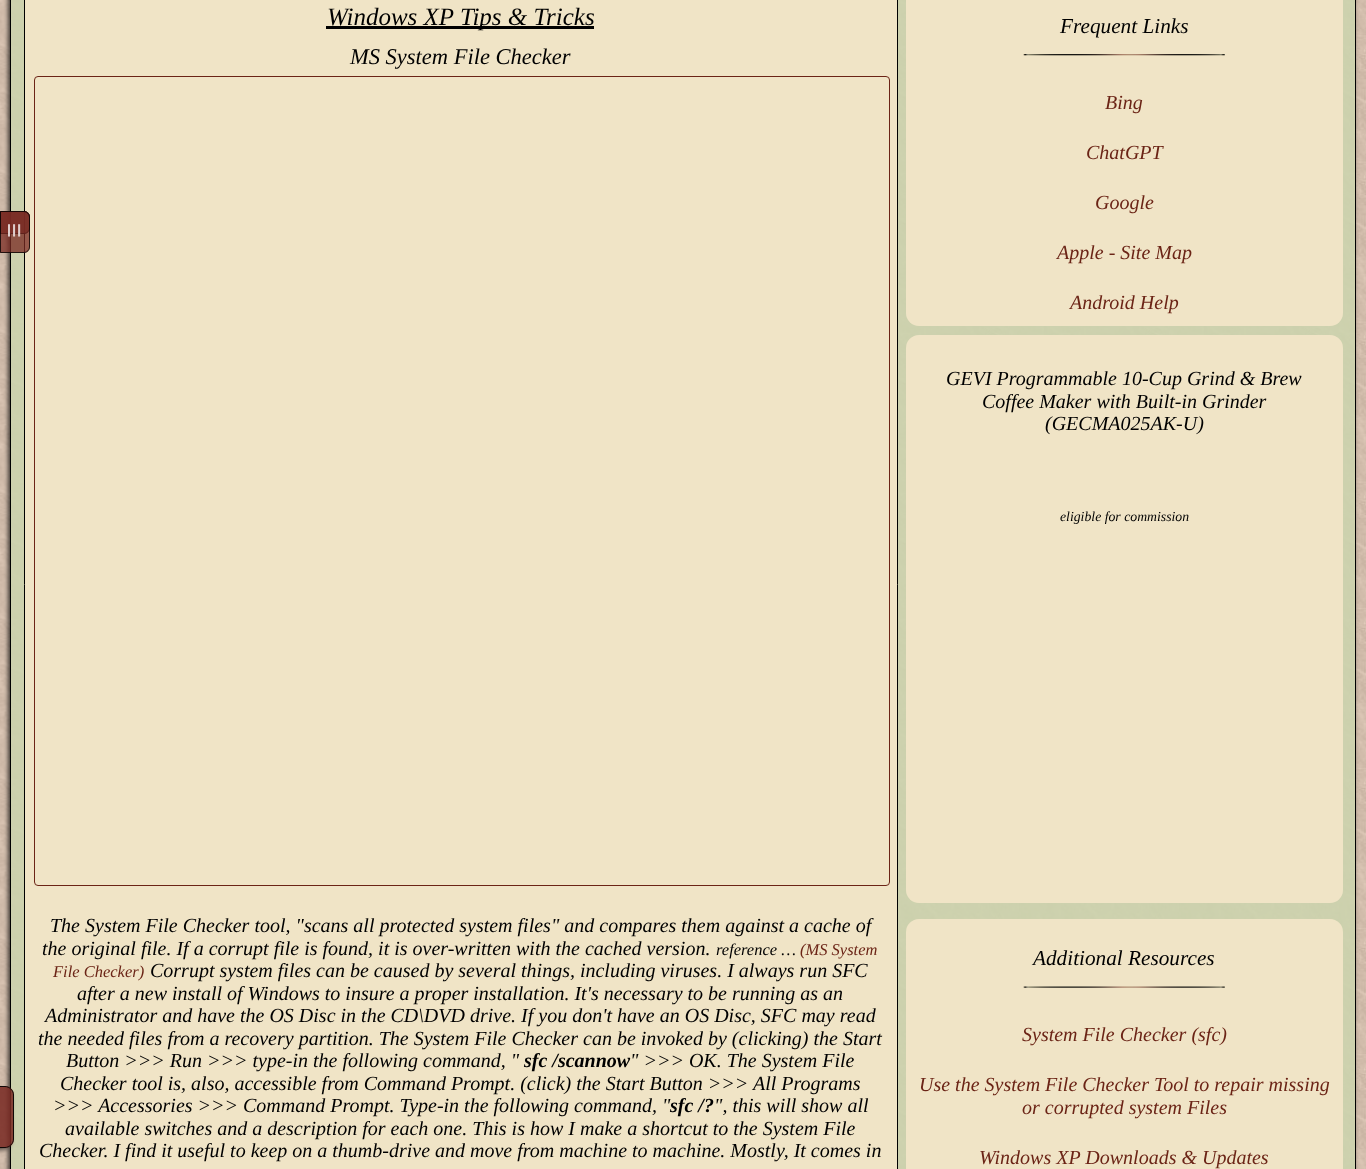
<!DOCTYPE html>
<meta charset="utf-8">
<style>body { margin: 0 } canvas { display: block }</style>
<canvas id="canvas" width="1366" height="1169"></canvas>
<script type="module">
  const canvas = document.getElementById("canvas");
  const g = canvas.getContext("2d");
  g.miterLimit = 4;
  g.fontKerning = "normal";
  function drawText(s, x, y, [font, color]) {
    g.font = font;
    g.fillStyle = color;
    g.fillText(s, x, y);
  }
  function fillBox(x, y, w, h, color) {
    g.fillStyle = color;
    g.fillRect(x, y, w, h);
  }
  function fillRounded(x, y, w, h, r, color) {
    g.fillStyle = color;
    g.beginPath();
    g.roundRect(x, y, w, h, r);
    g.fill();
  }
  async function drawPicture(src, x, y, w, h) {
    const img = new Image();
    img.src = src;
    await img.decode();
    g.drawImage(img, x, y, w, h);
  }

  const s1 = ["italic 25px Liberation Serif", "#000000"];
  const s2 = ["italic 22.5px Liberation Serif", "#000000"];
  const s3 = ["italic 20px Liberation Serif", "#000000"];
  const s4 = ["italic 16.5px Liberation Serif", "#000000"];
  const s5 = ["italic 16.5px Liberation Serif", "#6B2416"];
  const s6 = ["italic bold 20px Liberation Serif", "#000000"];
  const s7 = ["italic 21.25px Liberation Serif", "#000000"];
  const s8 = ["italic 20px Liberation Serif", "#6B2416"];
  const s9 = ["italic 13.75px Liberation Serif", "#000000"];

  fillBox(0, 0, 1366, 1169, "#FFFFFF");
  await drawPicture("pic1.png", 0, 0, 1366, 1169);
  g.save();
  g.beginPath();
  g.moveTo(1, 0);
  g.lineTo(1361, 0);
  g.lineTo(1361, 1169);
  g.lineTo(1, 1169);
  g.closePath();
  g.moveTo(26, -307);
  g.lineTo(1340, -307);
  g.bezierCurveTo(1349, -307, 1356, -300, 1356, -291);
  g.lineTo(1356, 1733);
  g.bezierCurveTo(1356, 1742, 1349, 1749, 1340, 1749);
  g.lineTo(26, 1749);
  g.bezierCurveTo(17, 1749, 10, 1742, 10, 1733);
  g.lineTo(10, -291);
  g.bezierCurveTo(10, -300, 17, -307, 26, -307);
  g.closePath();
  g.clip("evenodd");
  g.fillStyle = "rgba(0, 0, 0, 0.69)";
  g.filter = "blur(2px)";
  g.beginPath();
  g.roundRect(8, -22, 1346, 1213, 16);
  g.fill();
  g.filter = "none";
  g.restore();
  g.strokeStyle = "#000000";
  g.strokeRect(10.5, -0.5, 1345, 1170);
  g.fillStyle = "#F0E4C6";
  g.beginPath();
  g.rect(24.5, -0.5, 873, 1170);
  g.fill();
  g.stroke();
  g.fillStyle = "rgba(121, 43, 36, 0.87)";
  g.beginPath();
  g.roundRect(0, 211, 30, 23, [0, 6, 6, 0]);
  g.fill();
  g.beginPath();
  g.roundRect(0.5, 211.5, 29, 22, [0, 5.5, 5.5, 0]);
  g.strokeStyle = "rgba(0, 0, 0, 0.87)";
  g.stroke();
  g.fillStyle = "rgba(121, 43, 36, 0.76)";
  g.beginPath();
  g.roundRect(0, 211, 30, 42, [0, 6, 6, 0]);
  g.fill();
  g.beginPath();
  g.roundRect(0.5, 211.5, 29, 41, [0, 5.5, 5.5, 0]);
  g.strokeStyle = "rgba(0, 0, 0, 0.76)";
  g.stroke();
  g.font = "bold 16px DejaVu Sans";
  g.fillStyle = "#DFCECC";
  g.save();
  g.translate(8, 223);
  g.rotate(90 * Math.PI / 180);
  g.fillText("☰", 0, 0);
  g.restore();
  fillBox(326, 26, 268, 3, "#000000");
  drawText("Windows XP Tips & Tricks", 327, 25, s1);
  drawText("MS System File Checker", 350, 64, s2);
  g.beginPath();
  g.roundRect(34.5, 76.5, 855, 809, 3.5);
  g.strokeStyle = "#6B2416";
  g.stroke();
  drawText("The System File Checker tool, \"scans all protected system files\" and compares them against a cache of", 50, 932, s3);
  drawText("the original file. If a corrupt file is found, it is over-written with the cached version.", 42, 955, s3);
  drawText("reference …", 716, 955, s4);
  drawText("(MS System", 800, 955, s5);
  drawText("File Checker)", 53, 977, s5);
  drawText("Corrupt system files can be caused by several things, including viruses. I always run SFC", 150, 977, s3);
  drawText("after a new install of Windows to insure a proper installation. It's necessary to be running as an", 77, 1000, s3);
  drawText("Administrator and have the OS Disc in the CD\\DVD drive. If you don't have an OS Disc, SFC may read", 45, 1022, s3);
  drawText("the needed files from a recovery partition. The System File Checker can be invoked by (clicking) the Start", 38, 1045, s3);
  drawText("Button >>> Run >>> type-in the following command, \"", 66, 1067, s3);
  drawText("sfc /scannow", 524, 1067, s6);
  drawText("\" >>> OK. The System File", 630, 1067, s3);
  drawText("Checker tool is, also, accessible from Command Prompt. (click) the Start Button >>> All Programs", 60, 1090, s3);
  drawText(">>> Accessories >>> Command Prompt. Type-in the following command, \"", 53, 1112, s3);
  drawText("sfc /?", 670, 1112, s6);
  drawText("\", this will show all", 714, 1112, s3);
  drawText("available switches and a description for each one. This is how I make a shortcut to the System File", 65, 1135, s3);
  drawText("Checker. I find it useful to keep on a thumb-drive and move from machine to machine. Mostly, It comes in", 39, 1157, s3);
  fillRounded(906, -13, 437, 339, 13, "#F0E4C6");
  drawText("Frequent Links", 1060, 33, s7);
  await drawPicture("pic2.png", 1023, 54, 202, 2);
  drawText("Bing", 1105, 109, s8);
  drawText("ChatGPT", 1086, 159, s8);
  drawText("Google", 1095, 209, s8);
  drawText("Apple - Site Map", 1057, 259, s8);
  drawText("Android Help", 1070, 309, s8);
  fillRounded(906, 335, 437, 568, 13, "#F0E4C6");
  drawText("GEVI Programmable 10-Cup Grind & Brew", 946, 385, s3);
  drawText("Coffee Maker with Built-in Grinder", 982, 408, s3);
  drawText("(GECMA025AK-U)", 1045, 430, s3);
  drawText("eligible for commission", 1060, 521, s9);
  fillRounded(906, 919, 437, 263, 13, "#F0E4C6");
  drawText("Additional Resources", 1033, 965, s7);
  await drawPicture("pic3.png", 1023, 986, 202, 2);
  drawText("System File Checker (sfc)", 1022, 1041, s8);
  drawText("Use the System File Checker Tool to repair missing", 919, 1091, s8);
  drawText("or corrupted system Files", 1022, 1114, s8);
  drawText("Windows XP Downloads & Updates", 979, 1164, s8);
  g.save();
  g.beginPath();
  g.moveTo(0, 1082);
  g.lineTo(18, 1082);
  g.lineTo(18, 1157);
  g.lineTo(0, 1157);
  g.closePath();
  g.moveTo(-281, 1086);
  g.lineTo(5, 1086);
  g.bezierCurveTo(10, 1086, 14, 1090, 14, 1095);
  g.lineTo(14, 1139);
  g.bezierCurveTo(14, 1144, 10, 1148, 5, 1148);
  g.lineTo(-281, 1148);
  g.closePath();
  g.clip("evenodd");
  g.fillStyle = "rgba(0, 0, 0, 0.6)";
  g.filter = "blur(2px)";
  g.beginPath();
  g.roundRect(-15, 1089, 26, 61, 9);
  g.fill();
  g.filter = "none";
  g.restore();
  g.fillStyle = "rgba(121, 43, 36, 0.87)";
  g.beginPath();
  g.moveTo(-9, 1086);
  g.lineTo(5, 1086);
  g.bezierCurveTo(10, 1086, 14, 1090, 14, 1095);
  g.lineTo(14, 1139);
  g.bezierCurveTo(14, 1144, 10, 1148, 5, 1148);
  g.lineTo(-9, 1148);
  g.closePath();
  g.fill();
  g.beginPath();
  g.moveTo(-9.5, 1086.5);
  g.lineTo(5, 1086.5);
  g.bezierCurveTo(9.5, 1086.5, 13.5, 1090.5, 13.5, 1095);
  g.lineTo(13.5, 1139);
  g.bezierCurveTo(13.5, 1143.5, 9.5, 1147.5, 5, 1147.5);
  g.lineTo(-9.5, 1147.5);
  g.closePath();
  g.strokeStyle = "rgba(0, 0, 0, 0.87)";
  g.stroke();
</script>
